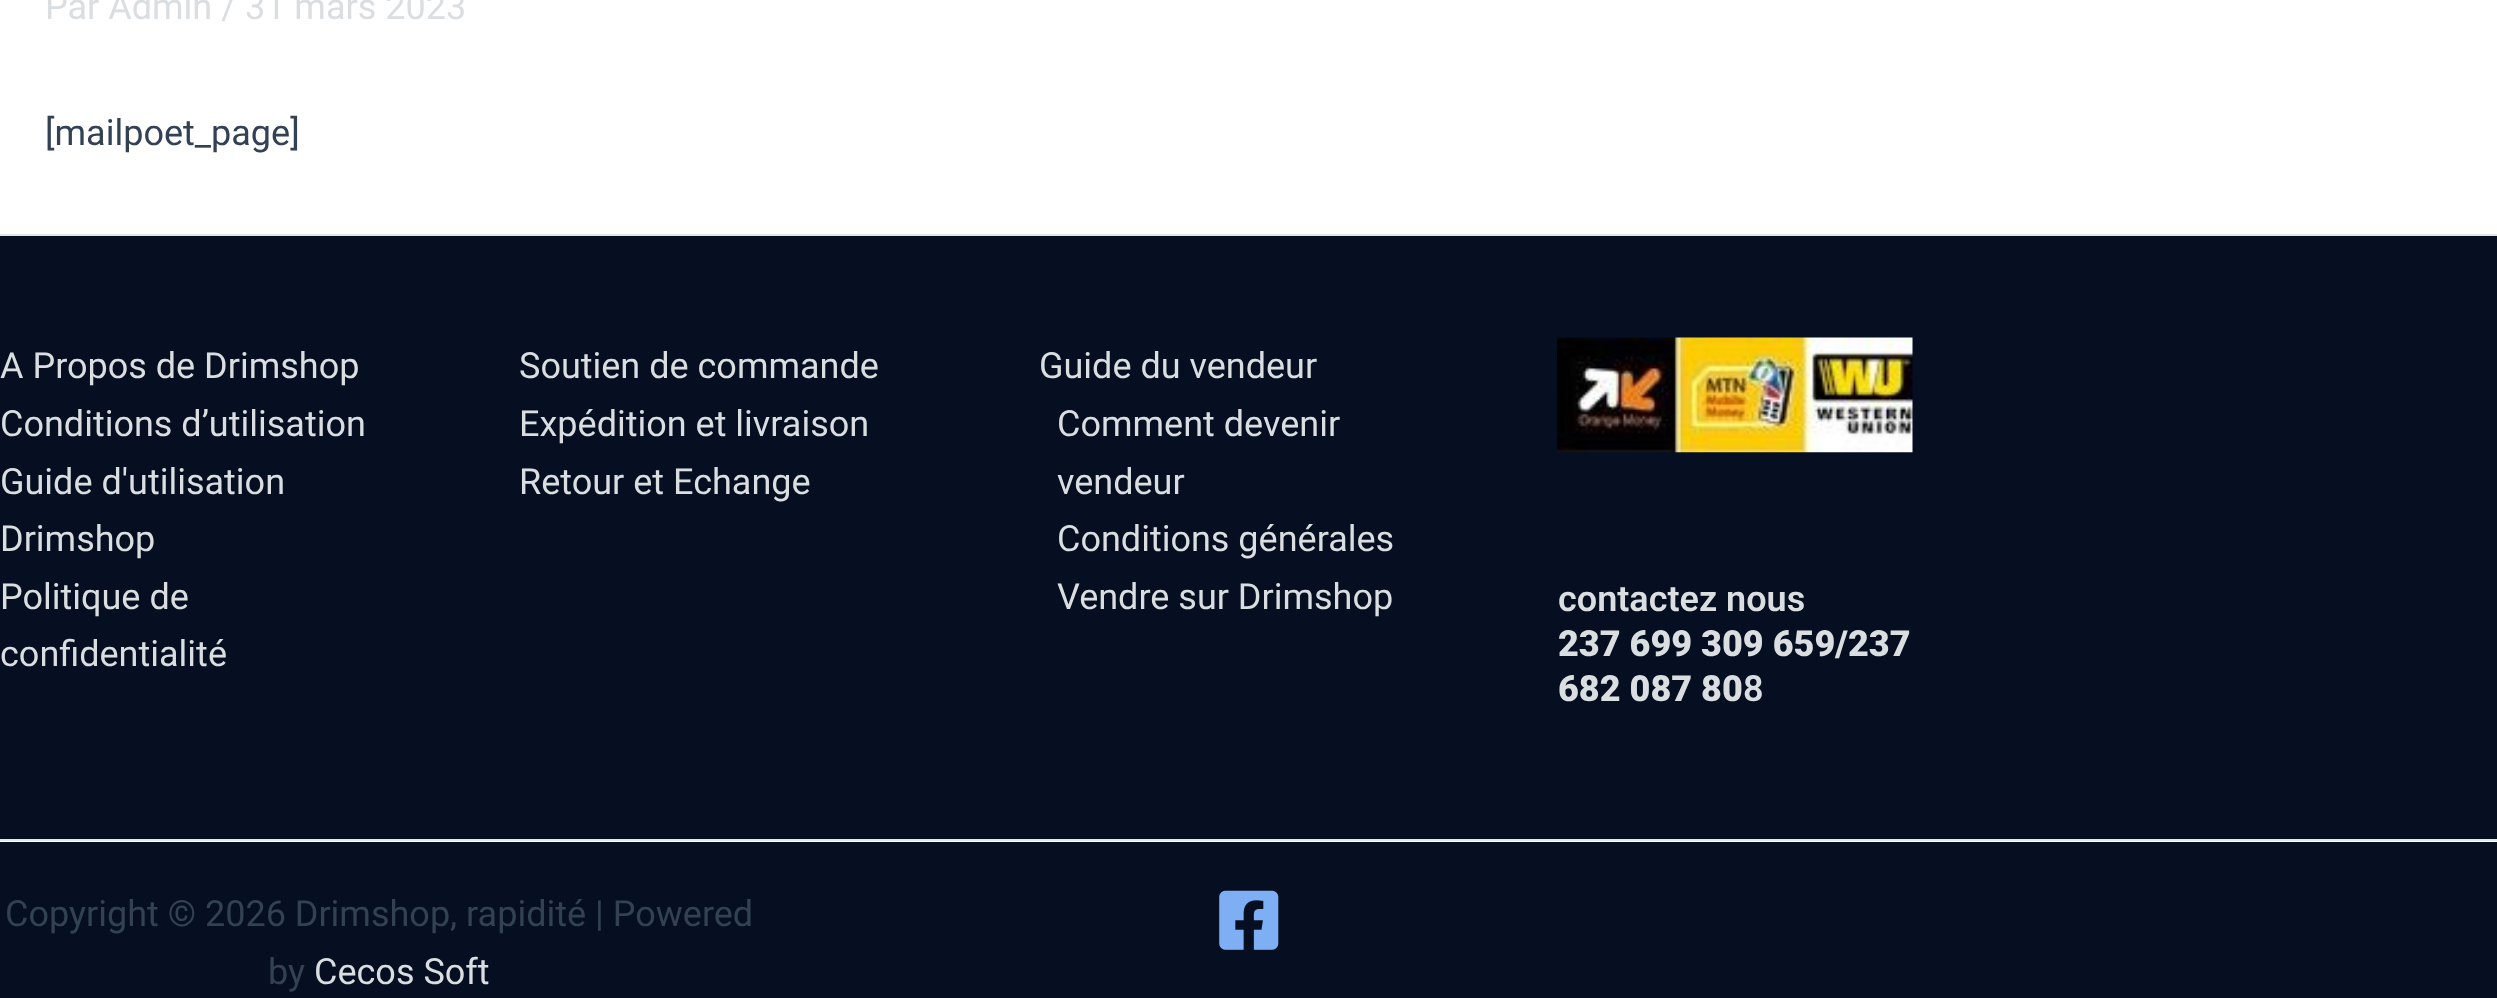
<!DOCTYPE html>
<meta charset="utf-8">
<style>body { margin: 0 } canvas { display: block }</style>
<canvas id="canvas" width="2497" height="998"></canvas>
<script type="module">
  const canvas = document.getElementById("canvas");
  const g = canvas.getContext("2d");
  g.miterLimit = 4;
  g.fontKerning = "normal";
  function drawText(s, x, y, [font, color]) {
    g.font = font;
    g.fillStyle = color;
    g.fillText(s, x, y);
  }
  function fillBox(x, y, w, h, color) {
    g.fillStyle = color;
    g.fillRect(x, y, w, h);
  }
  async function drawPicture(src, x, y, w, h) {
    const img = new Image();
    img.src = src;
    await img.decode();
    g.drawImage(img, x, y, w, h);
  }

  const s1 = ["36px Roboto", "#DADEE0"];
  const s2 = ["36px Roboto", "#334155"];
  const s3 = ["600 36px Roboto", "#DADEE0"];
  const s4 = ["900 36px Roboto", "#DADEE0"];

  fillBox(0, 0, 2497, 998, "#FFFFFF");
  drawText("Par Admin / 31 mars 2023", 45, 19, s1);
  drawText("[mailpoet_page]", 45, 145, s2);
  fillBox(0, 236, 2497, 603, "#050F21");
  fillBox(0, 234, 2497, 2, "#E6E6E6");
  drawText("A Propos de Drimshop", 0, 378, s1);
  drawText("Conditions d’utilisation", 0, 436, s1);
  drawText("Guide d'utilisation", 0, 494, s1);
  drawText("Drimshop", 0, 551, s1);
  drawText("Politique de", 0, 609, s1);
  drawText("confidentialité", 0, 666, s1);
  drawText("Soutien de commande", 519, 378, s1);
  drawText("Expédition et livraison", 519, 436, s1);
  drawText("Retour et Echange", 519, 494, s1);
  drawText("Guide du vendeur", 1039, 378, s1);
  drawText("Comment devenir", 1057, 436, s1);
  drawText("vendeur", 1057, 494, s1);
  drawText("Conditions générales", 1057, 551, s1);
  drawText("Vendre sur Drimshop", 1057, 609, s1);
  await drawPicture("pic1.png", 1557, 337, 356, 116);
  drawText("contactez nous", 1558, 611, s3);
  drawText("237 699 309 659/237", 1558, 656, s4);
  drawText("682 087 80", 1558, 701, s4);
  drawText("8", 1743, 701, s3);
  fillBox(0, 842, 2497, 156, "#050F21");
  fillBox(0, 839, 2497, 2, "#E2E8F0");
  drawText("Copyright © 2026 Drimshop, rapidité | Powered", 5, 926, s2);
  drawText("by", 268, 984, s2);
  drawText("Cecos Soft", 314, 984, s1);
  await drawPicture("pic2.png", 1219, 890, 60, 60);
</script>
